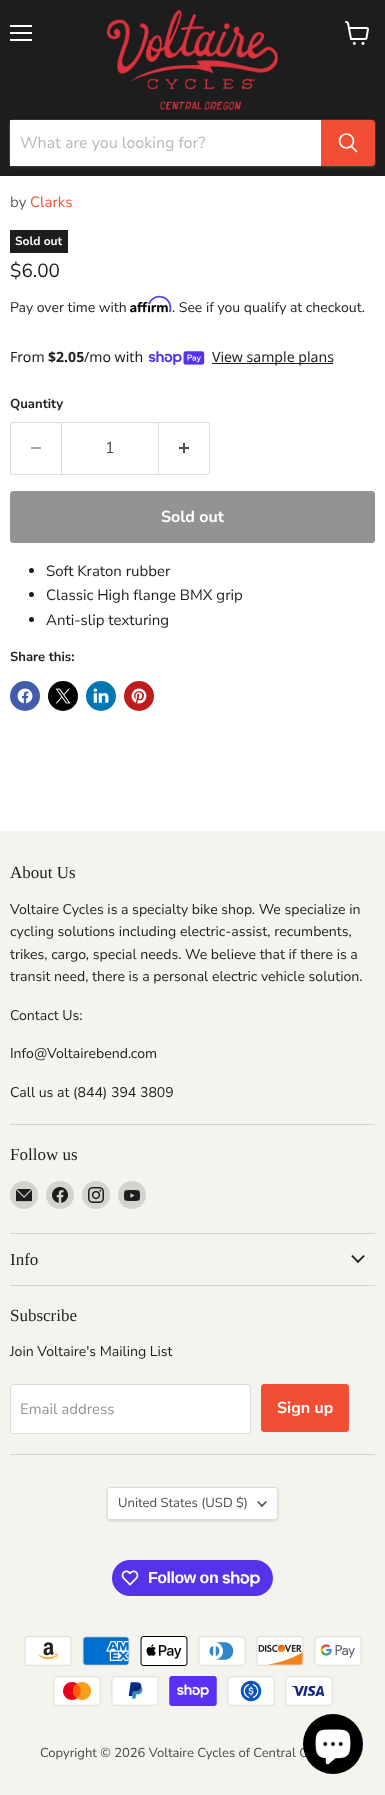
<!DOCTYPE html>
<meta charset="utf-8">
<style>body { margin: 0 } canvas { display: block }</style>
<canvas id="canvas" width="385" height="1795"></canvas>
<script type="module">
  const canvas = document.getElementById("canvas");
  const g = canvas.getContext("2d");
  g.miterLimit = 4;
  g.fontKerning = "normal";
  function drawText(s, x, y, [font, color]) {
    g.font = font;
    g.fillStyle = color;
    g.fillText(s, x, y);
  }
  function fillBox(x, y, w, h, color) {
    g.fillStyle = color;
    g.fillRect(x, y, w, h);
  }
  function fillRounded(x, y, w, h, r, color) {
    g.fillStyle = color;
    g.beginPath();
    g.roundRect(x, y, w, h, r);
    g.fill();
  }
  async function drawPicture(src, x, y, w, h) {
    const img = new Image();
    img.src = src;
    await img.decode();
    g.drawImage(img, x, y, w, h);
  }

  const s1 = ["16px Nunito Sans", "#B8B8B8"];
  const s2 = ["15px Nunito Sans", "#606060"];
  const s3 = ["15px Nunito Sans", "#F04F36"];
  const s4 = ["bold 12px Nunito Sans", "#FFFFFF"];
  const s5 = ["19px Nunito Sans", "#1D1D1D"];
  const s6 = ["14px Nunito Sans", "#1D1D1D"];
  const s7 = ["14.1px Noto Sans", "#1D1D1D"];
  const s8 = ["bold 14.1px Noto Sans", "#1D1D1D"];
  const s9 = ["bold 13.1px Nunito Sans", "#1D1D1D"];
  const s10 = ["16px Nunito Sans", "#4D4D4D"];
  const s11 = ["bold 16px Nunito Sans", "#FFFFFF"];
  const s12 = ["15px Nunito Sans", "#1D1D1D"];
  const s13 = ["17px Liberation Serif", "#1D1D1D"];
  const s14 = ["14.1px Nunito Sans", "#1D1D1D"];
  const s15 = ["15px Nunito Sans", "#949494"];
  const s16 = ["13.1px Nunito Sans", "#4D4D4D"];
  const s17 = ["bold 16px Liberation Sans", "#FFFFFF"];
  const s18 = ["13px Nunito Sans", "#484847"];

  fillBox(0, 0, 385, 1795, "#FFFFFF");
  fillBox(0, 0, 385, 176, "#1D1D1D");
  fillBox(10, 25, 22, 2, "#FFFFFF");
  fillBox(10, 32, 22, 2, "#FFFFFF");
  fillBox(10, 39, 22, 2, "#FFFFFF");
  await drawPicture("pic1.png", 345, 21, 24, 24);
  await drawPicture("pic2.png", 107, 10, 171, 100);
  g.fillStyle = "rgba(128, 128, 128, 0.11)";
  g.filter = "blur(1.5px)";
  g.beginPath();
  g.roundRect(9, 121, 367, 48, 4);
  g.fill();
  g.filter = "none";
  g.beginPath();
  g.roundRect(9.5, 119.5, 366, 47, 3.5);
  g.strokeStyle = "rgba(128, 128, 128, 0.2)";
  g.stroke();
  fillBox(10, 120, 311, 46, "#FFFFFF");
  drawText("What are you looking for?", 20, 148, s1);
  g.fillStyle = "#F04F36";
  g.beginPath();
  g.roundRect(321.5, 120.5, 53, 45, [0, 2.5, 2.5, 0]);
  g.fill();
  g.strokeStyle = "#F04F36";
  g.stroke();
  g.beginPath();
  g.moveTo(356.5, 151.5);
  g.lineTo(351.5, 146.5);
  g.strokeStyle = "#FFFFFF";
  g.lineWidth = 1.7;
  g.lineCap = "round";
  g.stroke();
  g.beginPath();
  g.arc(346.5, 141, 7, 0, Math.PI * 2);
  g.stroke();
  drawText("by", 10, 207, s2);
  drawText("Clarks", 30, 207, s3);
  fillBox(10, 230, 58, 23, "#1D1D1D");
  drawText("Sold out", 15, 245, s4);
  drawText("$6.00", 10, 277, s5);
  drawText("Pay over time with", 10, 312, s6);
  await drawPicture("pic4.png", 130, 301, 38, 12);
  await drawPicture("pic3.png", 148, 295, 24, 18);
  drawText(". See if you qualify at checkout.", 172, 312, s6);
  drawText("From", 10, 362, s7);
  drawText("$2.05", 48, 362, s8);
  drawText("/mo with", 84, 362, s7);
  await drawPicture("pic5.png", 148, 351, 57, 14);
  fillBox(212, 363, 121, 1, "#1D1D1D");
  drawText("View sample plans", 212, 362, s7);
  drawText("Quantity", 10, 408, s9);
  g.fillStyle = "#DDDDDD";
  g.beginPath();
  g.moveTo(13, 422);
  g.lineTo(61, 422);
  g.lineTo(61, 475);
  g.lineTo(13, 475);
  g.bezierCurveTo(11, 475, 10, 474, 10, 472);
  g.lineTo(10, 425);
  g.bezierCurveTo(10, 423, 11, 422, 13, 422);
  g.closePath();
  g.moveTo(13, 423);
  g.lineTo(61, 423);
  g.lineTo(61, 474);
  g.lineTo(13, 474);
  g.bezierCurveTo(12, 474, 11, 473, 11, 472);
  g.lineTo(11, 425);
  g.bezierCurveTo(11, 424, 12, 423, 13, 423);
  g.closePath();
  g.fill("evenodd");
  fillBox(31, 447, 10, 2, "#A6A6A6");
  g.strokeStyle = "#DDDDDD";
  g.lineWidth = 1;
  g.strokeRect(61.5, 422.5, 97, 52);
  drawText("1", 105, 453, s10);
  g.fillStyle = "#DDDDDD";
  g.beginPath();
  g.moveTo(159, 422);
  g.lineTo(207, 422);
  g.bezierCurveTo(209, 422, 210, 423, 210, 425);
  g.lineTo(210, 472);
  g.bezierCurveTo(210, 474, 209, 475, 207, 475);
  g.lineTo(159, 475);
  g.closePath();
  g.moveTo(159, 423);
  g.lineTo(207, 423);
  g.bezierCurveTo(208, 423, 209, 424, 209, 425);
  g.lineTo(209, 472);
  g.bezierCurveTo(209, 473, 208, 474, 207, 474);
  g.lineTo(159, 474);
  g.closePath();
  g.fill("evenodd");
  await drawPicture("pic6.png", 179, 443, 10, 10);
  g.fillStyle = "#939393";
  g.beginPath();
  g.roundRect(10.5, 491.5, 364, 51, 2.5);
  g.fill();
  g.strokeStyle = "#939393";
  g.stroke();
  drawText("Sold out", 161, 522, s11);
  g.fillStyle = "#1D1D1D";
  g.beginPath();
  g.arc(31.5, 570.5, 2.5, 0, Math.PI * 2);
  g.fill();
  drawText("Soft Kraton rubber", 46, 576, s12);
  g.beginPath();
  g.arc(31.5, 594.5, 2.5, 0, Math.PI * 2);
  g.fill();
  drawText("Classic High flange BMX grip", 46, 600, s12);
  g.beginPath();
  g.arc(31.5, 619.5, 2.5, 0, Math.PI * 2);
  g.fill();
  drawText("Anti-slip texturing", 46, 625, s12);
  drawText("Share this:", 10, 661, s9);
  g.fillStyle = "#425DAB";
  g.beginPath();
  g.arc(25, 696, 15, 0, Math.PI * 2);
  g.fill();
  await drawPicture("pic7.png", 17, 688, 16, 16);
  g.fillStyle = "#000000";
  g.beginPath();
  g.arc(63, 696, 15, 0, Math.PI * 2);
  g.fill();
  await drawPicture("pic8.png", 55, 688, 16, 16);
  g.fillStyle = "#0077B5";
  g.beginPath();
  g.arc(101, 696, 15, 0, Math.PI * 2);
  g.fill();
  await drawPicture("pic9.png", 93, 688, 16, 15);
  g.fillStyle = "#BD1C1C";
  g.beginPath();
  g.arc(139, 696, 15, 0, Math.PI * 2);
  g.fill();
  await drawPicture("pic10.png", 131, 688, 16, 16);
  fillBox(0, 831, 385, 964, "#F5F3ED");
  fillBox(10, 1124, 365, 1, "#D5D3CE");
  drawText("About Us", 10, 878, s13);
  drawText("Voltaire Cycles is a specialty bike shop. We specialize in", 10, 914, s14);
  drawText("cycling solutions including electric-assist, recumbents,", 10, 936, s14);
  drawText("trikes, cargo, special needs. We believe that if there is a", 10, 959, s14);
  drawText("transit need, there is a personal electric vehicle solution.", 10, 981, s14);
  drawText("Contact Us:", 10, 1020, s14);
  drawText("Info@Voltairebend.com", 10, 1058, s14);
  drawText("Call us at (844) 394 3809", 10, 1097, s14);
  fillBox(10, 1233, 365, 1, "#D5D3CE");
  drawText("Follow us", 10, 1160, s13);
  g.fillStyle = "#D5D3CE";
  g.beginPath();
  g.arc(24, 1195, 14, 0, Math.PI * 2);
  g.fill();
  await drawPicture("pic11.png", 16, 1189, 16, 13);
  g.beginPath();
  g.arc(60, 1195, 14, 0, Math.PI * 2);
  g.fill();
  await drawPicture("pic12.png", 52, 1187, 16, 16);
  g.beginPath();
  g.arc(96, 1195, 14, 0, Math.PI * 2);
  g.fill();
  await drawPicture("pic13.png", 88, 1187, 16, 16);
  g.beginPath();
  g.arc(132, 1195, 14, 0, Math.PI * 2);
  g.fill();
  await drawPicture("pic14.png", 124, 1190, 16, 11);
  fillBox(10, 1285, 365, 1, "#D5D3CE");
  drawText("Info", 10, 1265, s13);
  await drawPicture("pic15.png", 351, 1255, 14, 8);
  fillBox(10, 1454, 365, 1, "#D5D3CE");
  drawText("Subscribe", 10, 1321, s13);
  drawText("Join Voltaire's Mailing List", 10, 1356, s14);
  g.fillStyle = "#FFFFFF";
  g.beginPath();
  g.roundRect(10.5, 1384.5, 240, 49, 2.5);
  g.fill();
  g.strokeStyle = "#DDDDDD";
  g.stroke();
  drawText("Email address", 20, 1414, s15);
  g.fillStyle = "#F04F36";
  g.beginPath();
  g.roundRect(261.5, 1384.5, 87, 47, 2.5);
  g.fill();
  g.strokeStyle = "#F04F36";
  g.stroke();
  drawText("Sign up", 277, 1413, s11);
  g.fillStyle = "rgba(0, 0, 0, 0.15)";
  g.filter = "blur(1px)";
  g.beginPath();
  g.roundRect(107, 1488, 171, 33, 3);
  g.fill();
  g.filter = "none";
  g.fillStyle = "#FFFFFF";
  g.beginPath();
  g.roundRect(107.5, 1487.5, 170, 32, 2.5);
  g.fill();
  g.strokeStyle = "#DDDDDD";
  g.stroke();
  drawText("United States (USD $)", 118, 1507, s16);
  await drawPicture("pic16.png", 257, 1501, 10, 6);
  fillRounded(112, 1560, 161, 36, 18, "#5433EB");
  await drawPicture("pic17.png", 121, 1570, 18, 16);
  g.letterSpacing = "-0.5px";
  drawText("Follow on", 148, 1583, s17);
  await drawPicture("pic18.png", 222, 1571, 38, 16);
  await drawPicture("pic19.png", 24, 1636, 48, 30);
  await drawPicture("pic20.png", 82, 1636, 48, 30);
  await drawPicture("pic21.png", 140, 1636, 48, 30);
  await drawPicture("pic22.png", 198, 1636, 48, 30);
  await drawPicture("pic23.png", 256, 1636, 48, 30);
  await drawPicture("pic24.png", 314, 1636, 48, 30);
  await drawPicture("pic25.png", 53, 1676, 48, 30);
  await drawPicture("pic26.png", 111, 1676, 48, 30);
  await drawPicture("pic27.png", 169, 1676, 48, 30);
  await drawPicture("pic28.png", 227, 1676, 48, 30);
  await drawPicture("pic29.png", 285, 1676, 48, 30);
  g.letterSpacing = "0px";
  drawText("Copyright © 2026 Voltaire Cycles of Central O", 40, 1757, s18);
  g.fillStyle = "#000000";
  g.beginPath();
  g.arc(333, 1744, 30, 0, Math.PI * 2);
  g.fill();
  await drawPicture("pic30.png", 315, 1729, 36, 36);
</script>
